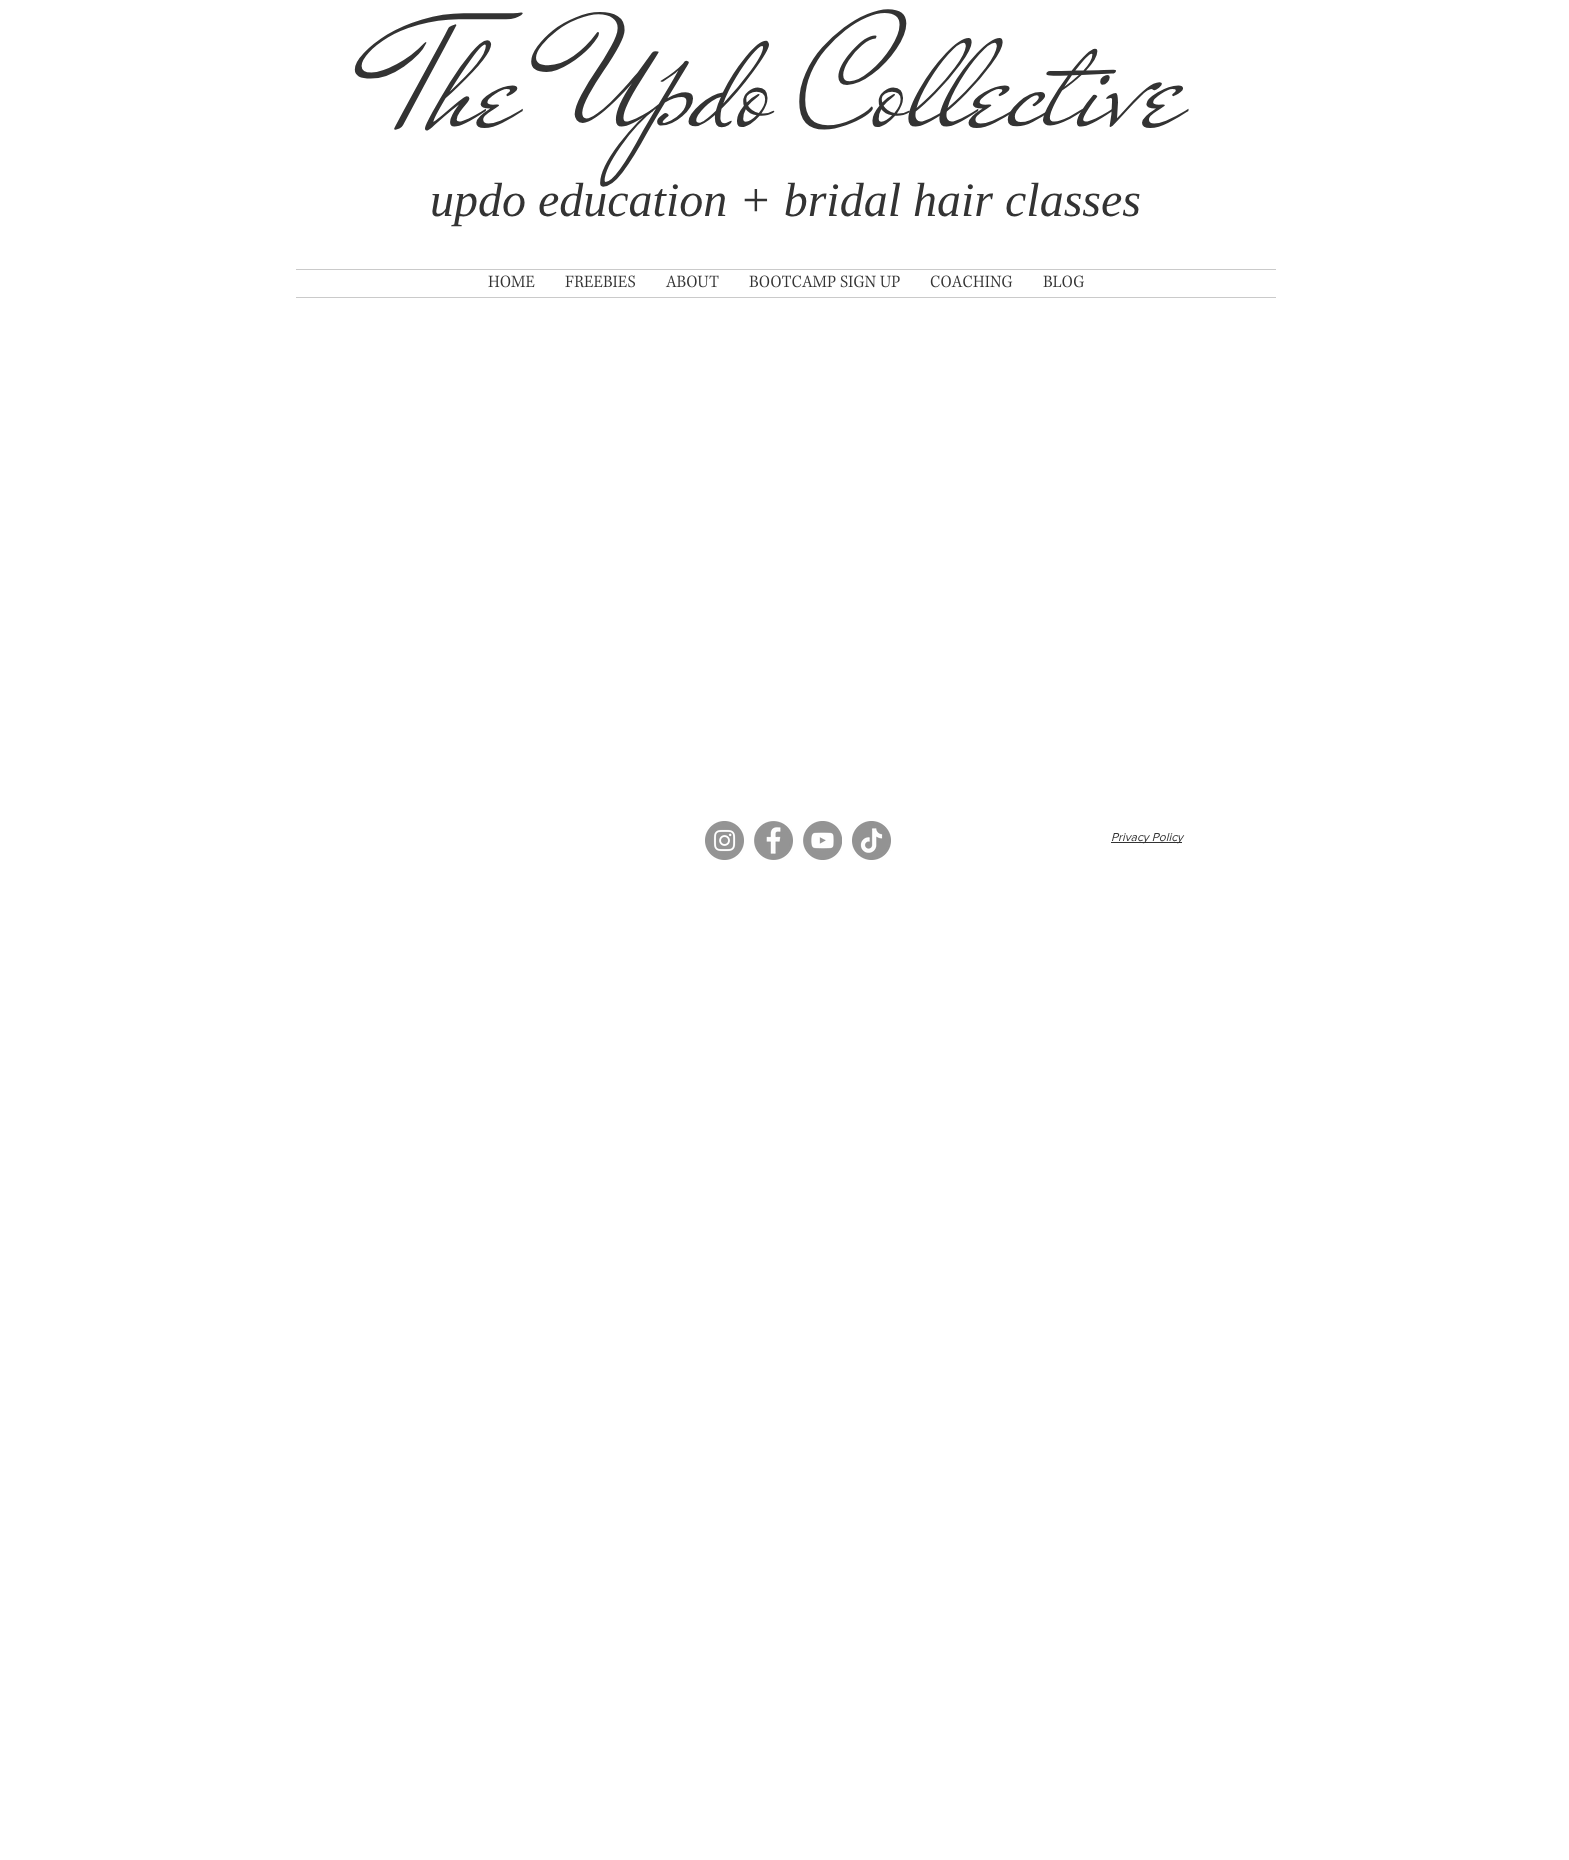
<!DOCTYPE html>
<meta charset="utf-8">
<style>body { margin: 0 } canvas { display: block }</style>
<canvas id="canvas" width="1569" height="1860"></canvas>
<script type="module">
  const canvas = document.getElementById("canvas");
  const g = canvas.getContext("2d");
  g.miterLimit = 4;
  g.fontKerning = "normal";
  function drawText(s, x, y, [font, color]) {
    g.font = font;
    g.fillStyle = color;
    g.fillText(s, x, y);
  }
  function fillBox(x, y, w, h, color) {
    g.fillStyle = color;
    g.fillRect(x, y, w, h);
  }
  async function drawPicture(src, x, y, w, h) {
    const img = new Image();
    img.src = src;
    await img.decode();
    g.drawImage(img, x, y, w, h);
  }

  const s1 = ["161px Mr De Haviland", "#333333"];
  const s2 = ["italic 48px Liberation Serif", "#333333"];
  const s3 = ["italic 12px 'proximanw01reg'", "#333333"];

  fillBox(0, 0, 1569, 1860, "#FFFFFF");
  drawText("The Updo Collective", 388, 124, s1);
  drawText("updo education + bridal hair classes", 430, 216, s2);
  fillBox(296, 269, 980, 1, "#CACACA");
  fillBox(296, 297, 980, 1, "#CACACA");
  await drawPicture("pic1.png", 488, 275, 47, 13);
  await drawPicture("pic2.png", 565, 275, 70, 13);
  await drawPicture("pic3.png", 665, 275, 54, 13);
  await drawPicture("pic4.png", 749, 275, 151, 13);
  await drawPicture("pic5.png", 930, 275, 83, 13);
  await drawPicture("pic6.png", 1043, 275, 41, 13);
  await drawPicture("pic7.png", 705, 821, 39, 39);
  await drawPicture("pic8.png", 754, 821, 39, 39);
  await drawPicture("pic9.png", 803, 821, 39, 39);
  await drawPicture("pic10.png", 852, 821, 39, 39);
  fillBox(1111, 842, 71, 1, "#333333");
  drawText("Privacy Policy", 1111, 841, s3);
</script>
